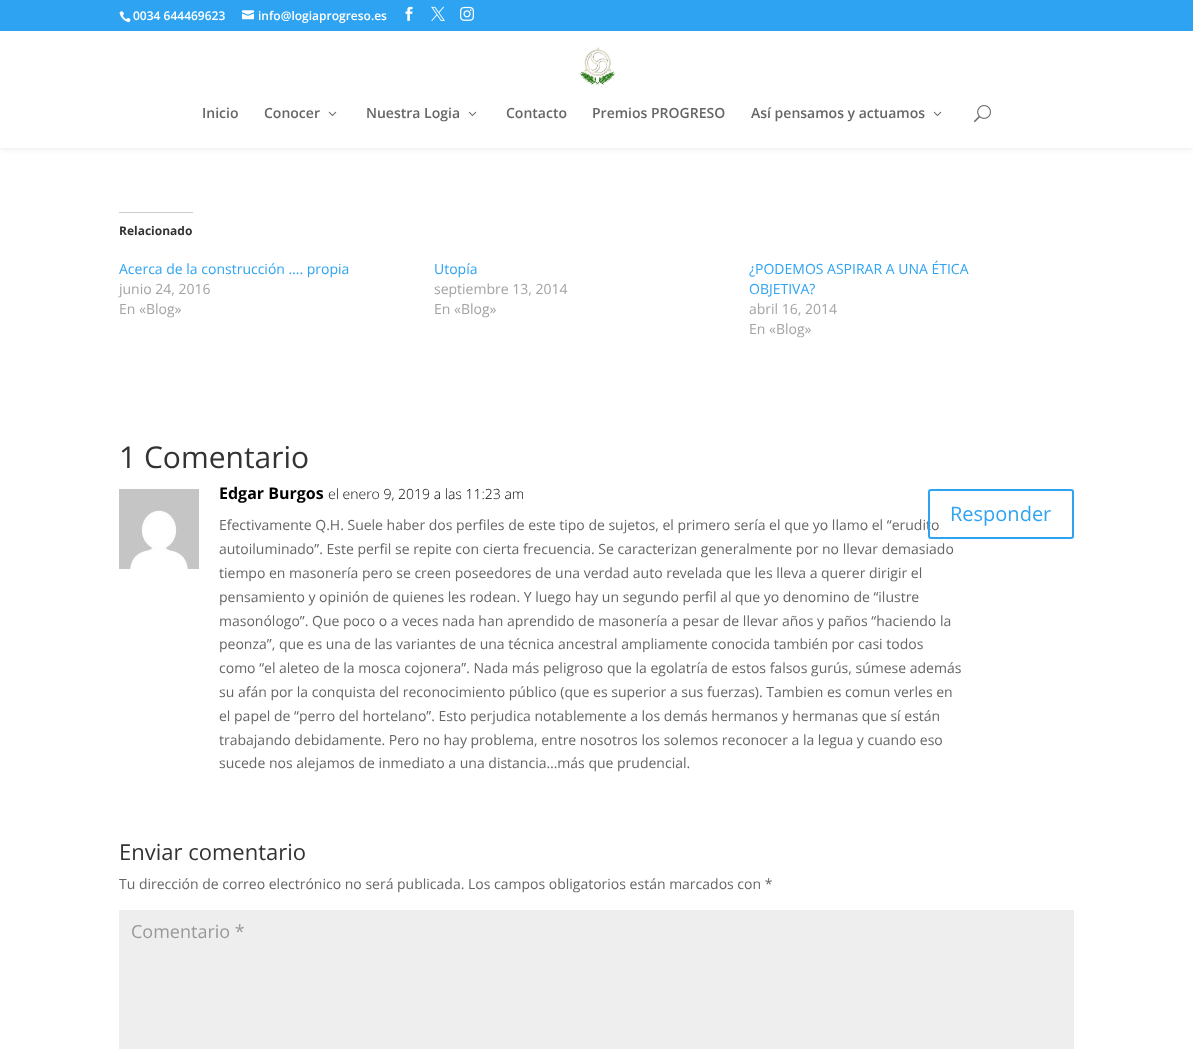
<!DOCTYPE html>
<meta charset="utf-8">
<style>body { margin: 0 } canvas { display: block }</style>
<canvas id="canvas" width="1193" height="1049"></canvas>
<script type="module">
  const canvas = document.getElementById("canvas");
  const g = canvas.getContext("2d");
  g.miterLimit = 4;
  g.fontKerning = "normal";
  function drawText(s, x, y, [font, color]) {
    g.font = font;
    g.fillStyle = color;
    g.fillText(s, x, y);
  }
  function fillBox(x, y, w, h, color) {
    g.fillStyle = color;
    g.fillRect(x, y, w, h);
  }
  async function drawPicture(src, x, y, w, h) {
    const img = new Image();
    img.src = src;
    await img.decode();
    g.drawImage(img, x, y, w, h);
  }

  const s1 = ["600 12px Open Sans", "#FFFFFF"];
  const s2 = ["600 14px Open Sans", "#666666"];
  const s3 = ["bold 12px Open Sans", "#333333"];
  const s4 = ["14px Open Sans", "#2EA3F2"];
  const s5 = ["14px Open Sans", "#A3A3A3"];
  const s6 = ["30px Open Sans", "#333333"];
  const s7 = ["bold 16px Open Sans", "#000000"];
  const s8 = ["300 14px Open Sans", "#000000"];
  const s9 = ["14px Open Sans", "#666666"];
  const s10 = ["20px Open Sans", "#2EA3F2"];
  const s11 = ["22px Open Sans", "#333333"];
  const s12 = ["18px Open Sans", "#999999"];

  fillBox(0, 0, 1193, 1049, "#FFFFFF");
  g.fillStyle = "rgba(0, 0, 0, 0.1)";
  g.filter = "blur(3.5px)";
  g.beginPath();
  g.rect(0, 31, 1193, 117);
  g.fill();
  g.filter = "none";
  fillBox(0, 0, 1193, 31, "#2EA3F2");
  await drawPicture("pic1.png", 119, 11, 12, 12);
  drawText("0034 644469623", 133, 20, s1);
  await drawPicture("pic2.png", 242, 10, 12, 10);
  drawText("info@logiaprogreso.es", 258, 20, s1);
  await drawPicture("pic3.png", 405, 6, 8, 15);
  await drawPicture("pic4.png", 431, 6, 14, 15);
  await drawPicture("pic5.png", 460, 6, 14, 15);
  fillBox(0, 31, 1193, 117, "#FFFFFF");
  await drawPicture("pic6.png", 579, 47, 37, 38);
  drawText("Inicio", 202, 118, s2);
  drawText("Conocer", 264, 118, s2);
  await drawPicture("pic7.png", 328, 111, 9, 5);
  drawText("Nuestra Logia", 366, 118, s2);
  await drawPicture("pic7.png", 468, 111, 9, 5);
  drawText("Contacto", 506, 118, s2);
  drawText("Premios PROGRESO", 592, 118, s2);
  drawText("Así pensamos y actuamos", 751, 118, s2);
  await drawPicture("pic7.png", 933, 111, 9, 5);
  await drawPicture("pic8.png", 974, 105, 17, 18);
  fillBox(119, 212, 74, 1, "#CCCCCC");
  drawText("Relacionado", 119, 235, s3);
  drawText("Acerca de la construcción …. propia", 119, 274, s4);
  drawText("junio 24, 2016", 119, 294, s5);
  drawText("En «Blog»", 119, 314, s5);
  drawText("Utopía", 434, 274, s4);
  drawText("septiembre 13, 2014", 434, 294, s5);
  drawText("En «Blog»", 434, 314, s5);
  drawText("¿PODEMOS ASPIRAR A UNA ÉTICA", 749, 274, s4);
  drawText("OBJETIVA?", 749, 294, s4);
  drawText("abril 16, 2014", 749, 314, s5);
  drawText("En «Blog»", 749, 334, s5);
  drawText("1 Comentario", 119, 468, s6);
  await drawPicture("pic9.png", 119, 489, 80, 80);
  drawText("Edgar Burgos", 219, 499, s7);
  drawText("el enero 9, 2019 a las 11:23 am", 328, 499, s8);
  drawText("Efectivamente Q.H. Suele haber dos perfiles de este tipo de sujetos, el primero sería el que yo llamo el “erudito", 219, 530, s9);
  g.beginPath();
  g.roundRect(929, 490, 144, 48, 2);
  g.strokeStyle = "#2EA3F2";
  g.lineWidth = 2;
  g.stroke();
  drawText("Responder", 950, 521, s10);
  drawText("autoiluminado”. Este perfil se repite con cierta frecuencia. Se caracterizan generalmente por no llevar demasiado", 219, 554, s9);
  drawText("tiempo en masonería pero se creen poseedores de una verdad auto revelada que les lleva a querer dirigir el", 219, 578, s9);
  drawText("pensamiento y opinión de quienes les rodean. Y luego hay un segundo perfil al que yo denomino de “ilustre", 219, 602, s9);
  drawText("masonólogo”. Que poco o a veces nada han aprendido de masonería a pesar de llevar años y paños “haciendo la", 219, 626, s9);
  drawText("peonza”, que es una de las variantes de una técnica ancestral ampliamente conocida también por casi todos", 219, 649, s9);
  drawText("como “el aleteo de la mosca cojonera”. Nada más peligroso que la egolatría de estos falsos gurús, súmese además", 219, 673, s9);
  drawText("su afán por la conquista del reconocimiento público (que es superior a sus fuerzas). Tambien es comun verles en", 219, 697, s9);
  drawText("el papel de “perro del hortelano”. Esto perjudica notablemente a los demás hermanos y hermanas que sí están", 219, 721, s9);
  drawText("trabajando debidamente. Pero no hay problema, entre nosotros los solemos reconocer a la legua y cuando eso", 219, 745, s9);
  drawText("sucede nos alejamos de inmediato a una distancia…más que prudencial.", 219, 768, s9);
  drawText("Enviar comentario", 119, 860, s11);
  drawText("Tu dirección de correo electrónico no será publicada. Los campos obligatorios están marcados con *", 119, 889, s9);
  fillBox(119, 910, 955, 139, "#EEEEEE");
  drawText("Comentario *", 131, 938, s12);
</script>
